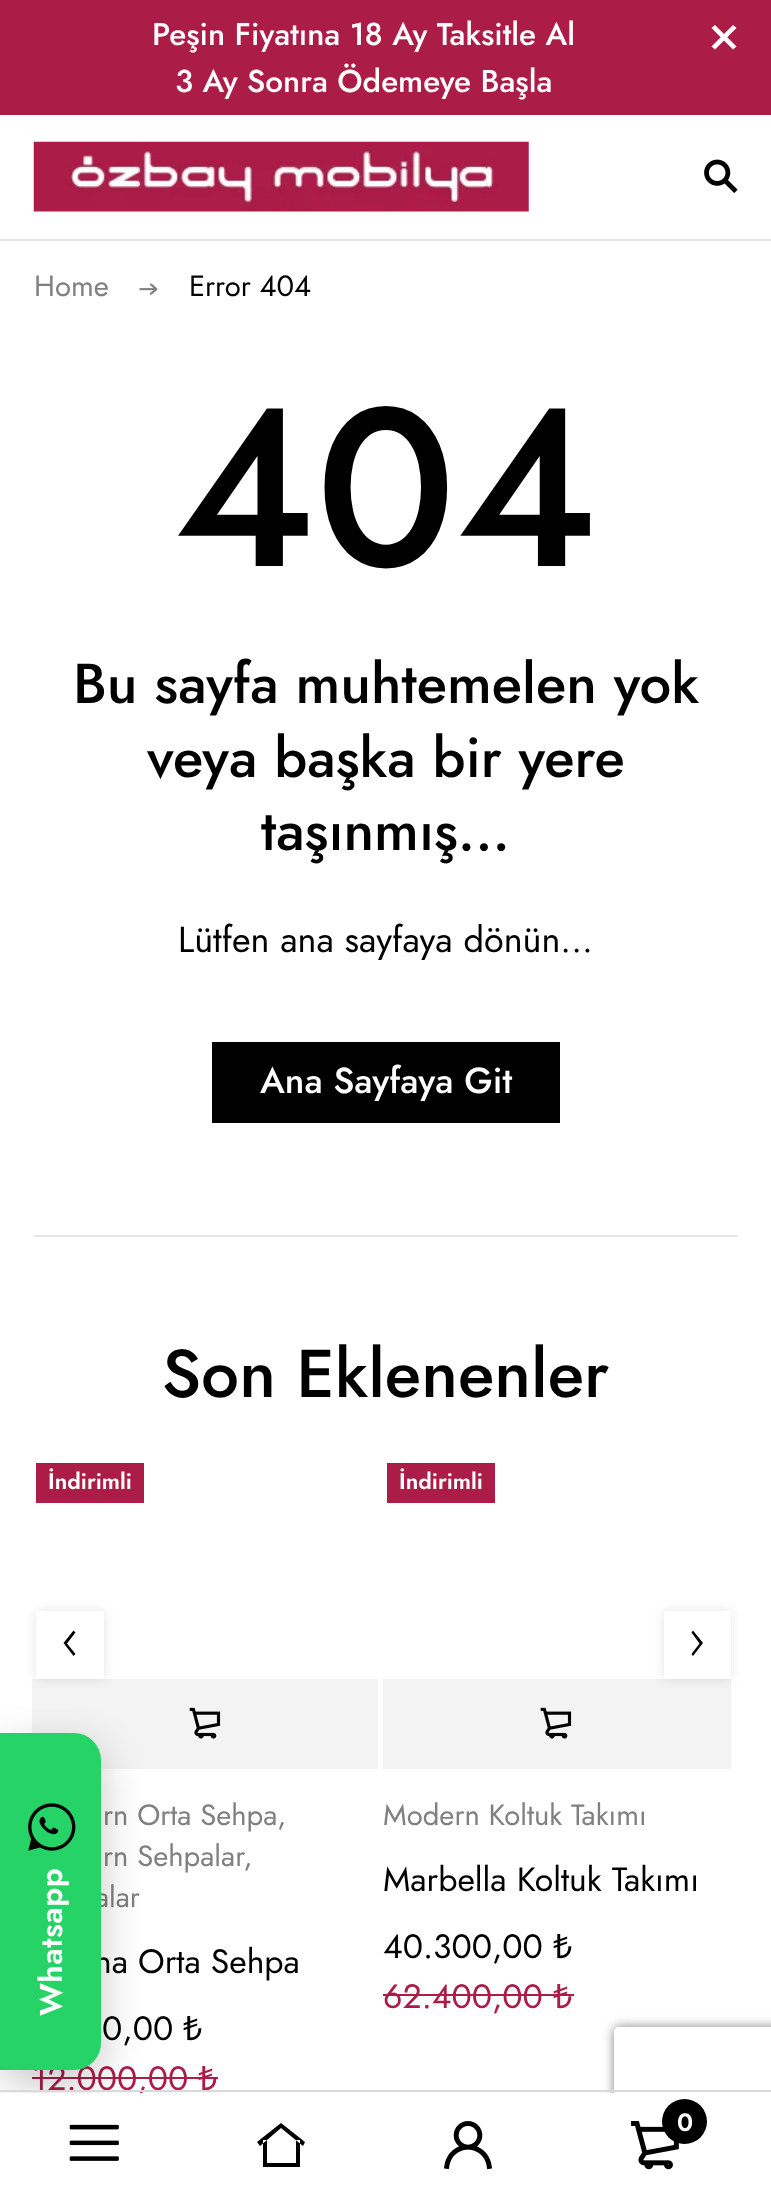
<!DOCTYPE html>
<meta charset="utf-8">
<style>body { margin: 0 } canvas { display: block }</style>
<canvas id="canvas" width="771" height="2192"></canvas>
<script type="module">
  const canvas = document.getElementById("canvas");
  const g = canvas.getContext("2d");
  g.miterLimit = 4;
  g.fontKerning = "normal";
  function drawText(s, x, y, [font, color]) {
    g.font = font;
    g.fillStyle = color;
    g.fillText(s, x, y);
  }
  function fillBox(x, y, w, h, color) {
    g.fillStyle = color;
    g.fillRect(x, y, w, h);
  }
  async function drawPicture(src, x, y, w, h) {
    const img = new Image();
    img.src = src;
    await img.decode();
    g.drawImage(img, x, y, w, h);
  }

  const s1 = ["500 31.5px Jost", "#FFFFFF"];
  const s2 = ["29.25px Jost", "#808080"];
  const s3 = ["29.25px Jost", "#000000"];
  const s4 = ["500 225px Jost", "#000000"];
  const s5 = ["500 56.25px Jost", "#000000"];
  const s6 = ["36px Jost", "#000000"];
  const s7 = ["500 36px Jost", "#FFFFFF"];
  const s8 = ["500 67.5px Jost", "#000000"];
  const s9 = ["600 22.5px Jost", "#FFFFFF"];
  const s10 = ["33.75px Jost", "#000000"];
  const s11 = ["33.75px Noto Sans", "#000000"];
  const s12 = ["33.75px Jost", "#AB1D47"];
  const s13 = ["33.75px Noto Sans", "#AB1D47"];
  const s14 = ["600 25px Jost", "#FFFFFF"];

  fillBox(0, 0, 771, 2192, "#FFFFFF");
  fillBox(0, 0, 771, 115, "#AB1D47");
  drawText("Peşin Fiyatına 18 Ay Taksitle Al", 152, 45, s1);
  g.beginPath();
  g.moveTo(711.5, 46.5);
  g.lineTo(733, 25);
  g.lineTo(736.5, 28);
  g.lineTo(715, 49.5);
  g.closePath();
  g.moveTo(733, 49.5);
  g.lineTo(711.5, 28);
  g.lineTo(715, 25);
  g.lineTo(736.5, 46.5);
  g.closePath();
  g.fill();
  drawText("3 Ay Sonra Ödemeye Başla", 175, 92, s1);
  await drawPicture("pic1.png", 33, 141, 496, 71);
  await drawPicture("pic2.png", 704, 159, 34, 34);
  fillBox(0, 239, 771, 2, "#E6E6E6");
  drawText("Home", 34, 296, s2);
  await drawPicture("pic3.png", 139, 283, 19, 12);
  drawText("Error 404", 189, 296, s3);
  drawText("404", 174, 566, s4);
  drawText("Bu sayfa muhtemelen yok", 73, 703, s5);
  drawText("veya başka bir yere", 147, 777, s5);
  drawText("taşınmış...", 261, 850, s5);
  drawText("Lütfen ana sayfaya dönün...", 178, 952, s6);
  fillBox(212, 1042, 348, 81, "#000000");
  drawText("Ana Sayfaya Git", 260, 1093, s7);
  fillBox(34, 1235, 704, 2, "#E6E6E6");
  drawText("Son Eklenenler", 162, 1397, s8);
  fillBox(36, 1463, 108, 40, "#AB1D47");
  drawText("İndirimli", 48, 1489, s9);
  fillBox(32, 1679, 346, 90, "#F3F3F3");
  await drawPicture("pic4.png", 189, 1707, 32, 32);
  drawText("rn Orta Sehpa,", 103, 1825, s2);
  drawText("rn Sehpalar,", 103, 1866, s2);
  drawText("alar", 95, 1907, s2);
  drawText("na Orta Sehpa", 94, 1973, s10);
  drawText("0,00", 102, 2040, s10);
  drawText("₺", 183, 2040, s11);
  drawText("12.000,00", 32, 2090, s12);
  drawText("₺", 198, 2090, s13);
  fillBox(32, 2077, 166, 2, "#AB1D47");
  fillBox(198, 2077, 20, 2, "#AB1D47");
  fillBox(387, 1463, 108, 40, "#AB1D47");
  drawText("İndirimli", 399, 1489, s9);
  fillBox(383, 1679, 348, 90, "#F3F3F3");
  await drawPicture("pic4.png", 540, 1707, 32, 32);
  drawText("Modern Koltuk Takımı", 383, 1825, s2);
  drawText("Marbella Koltuk Takımı", 383, 1891, s10);
  drawText("40.300,00", 383, 1958, s10);
  drawText("₺", 553, 1958, s11);
  drawText("62.400,00", 383, 2008, s12);
  drawText("₺", 553, 2008, s13);
  fillBox(383, 1994, 171, 2, "#AB1D47");
  fillBox(554, 1994, 20, 2, "#AB1D47");
  g.fillStyle = "rgba(0, 0, 0, 0.1)";
  g.filter = "blur(5.5px)";
  g.beginPath();
  g.rect(36, 1611, 68, 68);
  g.fill();
  g.filter = "none";
  fillBox(36, 1611, 68, 68, "#FFFFFF");
  g.fillStyle = "#000000";
  g.beginPath();
  g.moveTo(67, 1643.5);
  g.lineTo(75.5, 1654);
  g.lineTo(73.5, 1656);
  g.lineTo(63.5, 1643);
  g.lineTo(73.5, 1630.5);
  g.lineTo(75.5, 1632.5);
  g.closePath();
  g.fill();
  g.fillStyle = "rgba(0, 0, 0, 0.1)";
  g.filter = "blur(5.5px)";
  g.beginPath();
  g.rect(664, 1611, 67, 68);
  g.fill();
  g.filter = "none";
  fillBox(664, 1611, 67, 68, "#FFFFFF");
  g.fillStyle = "#000000";
  g.beginPath();
  g.moveTo(699.5, 1643.5);
  g.lineTo(691.5, 1654);
  g.lineTo(693, 1656);
  g.lineTo(703, 1643);
  g.lineTo(693, 1630.5);
  g.lineTo(691.5, 1632.5);
  g.closePath();
  g.fill();
  g.fillStyle = "rgba(0, 0, 0, 0.22)";
  g.filter = "blur(20px)";
  g.beginPath();
  g.roundRect(0, 1746, 101, 338, 27);
  g.fill();
  g.filter = "none";
  g.fillStyle = "#25D366";
  g.beginPath();
  g.roundRect(0, 1733, 101, 337, [0, 27, 27, 0]);
  g.fill();
  await drawPicture("pic5.png", 28, 1803, 48, 48);
  g.letterSpacing = "0.5px";
  g.font = "600 31.5px Jost";
  g.fillStyle = "#FFFFFF";
  g.save();
  g.translate(62, 2016);
  g.rotate(-90 * Math.PI / 180);
  g.fillText("Whatsapp", 0, 0);
  g.restore();
  g.save();
  g.beginPath();
  g.moveTo(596, 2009);
  g.lineTo(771, 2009);
  g.lineTo(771, 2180);
  g.lineTo(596, 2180);
  g.closePath();
  g.moveTo(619, 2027);
  g.lineTo(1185, 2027);
  g.bezierCurveTo(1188, 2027, 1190, 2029, 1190, 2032);
  g.lineTo(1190, 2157);
  g.bezierCurveTo(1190, 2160, 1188, 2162, 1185, 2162);
  g.lineTo(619, 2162);
  g.bezierCurveTo(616, 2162, 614, 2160, 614, 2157);
  g.lineTo(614, 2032);
  g.bezierCurveTo(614, 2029, 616, 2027, 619, 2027);
  g.closePath();
  g.clip("evenodd");
  g.fillStyle = "#808080";
  g.filter = "blur(5.5px)";
  g.beginPath();
  g.roundRect(614, 2027, 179, 135, 5);
  g.fill();
  g.filter = "none";
  g.restore();
  fillBox(0, 2093, 771, 80, "#FFFFFF");
  fillBox(0, 2090, 771, 2, "#D9D9D9");
  await drawPicture("pic6.png", 69, 2124, 50, 37);
  g.fillStyle = "#000000";
  g.beginPath();
  g.moveTo(267, 2163);
  g.lineTo(267, 2140);
  g.lineTo(263, 2140);
  g.lineTo(263, 2167);
  g.lineTo(300, 2167);
  g.lineTo(300, 2140);
  g.lineTo(296, 2140);
  g.lineTo(296, 2163);
  g.closePath();
  g.moveTo(281, 2123);
  g.lineTo(305, 2142);
  g.lineTo(303, 2146);
  g.lineTo(281, 2128);
  g.lineTo(260, 2146);
  g.lineTo(257, 2142);
  g.closePath();
  g.fill();
  await drawPicture("pic7.png", 444, 2121, 48, 49);
  await drawPicture("pic8.png", 631, 2121, 48, 49);
  g.beginPath();
  g.arc(684.5, 2121.5, 22.5, 0, Math.PI * 2);
  g.fill();
  g.letterSpacing = "0px";
  drawText("0", 677, 2131, s14);
</script>
